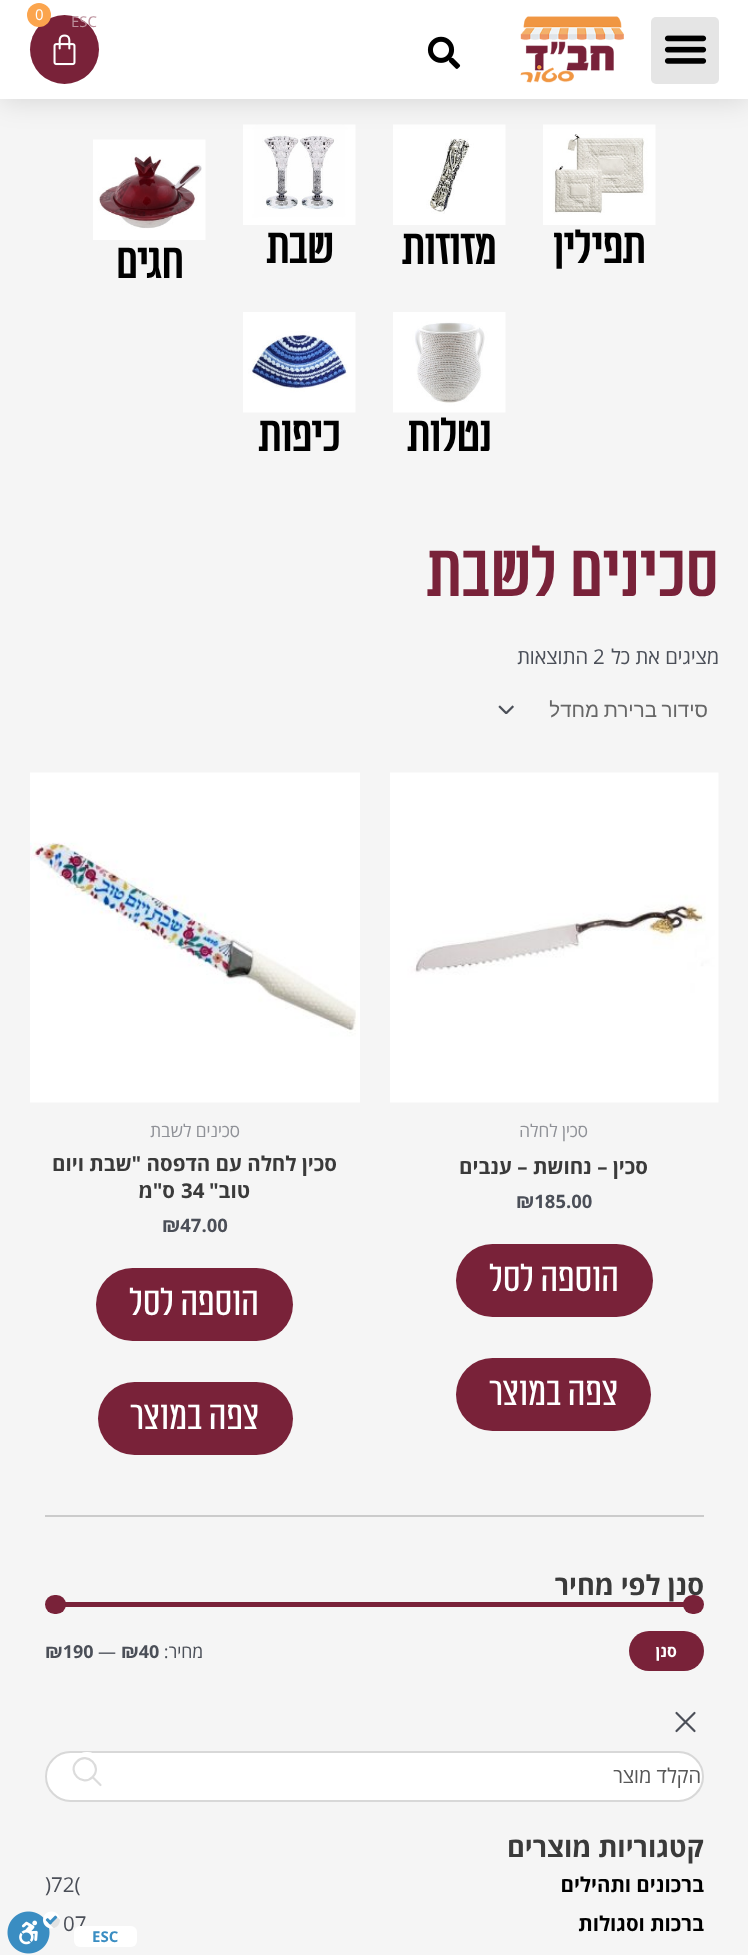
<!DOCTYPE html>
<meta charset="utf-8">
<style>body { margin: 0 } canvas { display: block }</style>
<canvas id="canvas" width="748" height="1955"></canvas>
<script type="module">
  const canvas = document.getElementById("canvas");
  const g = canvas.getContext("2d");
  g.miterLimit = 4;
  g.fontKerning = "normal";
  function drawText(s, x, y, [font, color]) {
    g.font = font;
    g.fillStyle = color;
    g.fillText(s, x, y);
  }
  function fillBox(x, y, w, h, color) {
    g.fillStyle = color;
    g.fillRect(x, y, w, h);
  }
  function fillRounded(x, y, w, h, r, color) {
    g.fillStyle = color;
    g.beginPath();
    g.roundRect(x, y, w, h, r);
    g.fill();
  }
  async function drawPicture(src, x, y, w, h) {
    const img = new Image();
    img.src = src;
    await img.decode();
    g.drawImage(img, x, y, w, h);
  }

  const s1 = ["15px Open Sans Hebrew", "#FFFFFF"];
  const s2 = ["bold 48px 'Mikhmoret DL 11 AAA'", "#000000"];
  const s3 = ["bold 72px 'Mikhmoret DL 11 AAA'", "#792239"];
  const s4 = ["20.5px Open Sans Hebrew", "#4B4F58"];
  const s5 = ["20.5px Liberation Sans", "#666666"];
  const s6 = ["17.5px Open Sans Hebrew", "#8F9197"];
  const s7 = ["bold 20.5px Open Sans Hebrew", "#3A3A3A"];
  const s8 = ["bold 18.5px Open Sans Hebrew", "#4B4F58"];
  const s9 = ["40.5px 'Mikhmoret DL 11 AAA'", "#FFFFFF"];
  const s10 = ["bold 27.25px Open Sans Hebrew", "#3A3A3A"];
  const s11 = ["bold 16px Open Sans Hebrew", "#FFFFFF"];
  const s12 = ["18px Open Sans Hebrew", "#4B4F58"];
  const s13 = ["bold 18px Open Sans Hebrew", "#4B4F58"];
  const s14 = ["20.5px Open Sans Hebrew", "#575757"];
  const s15 = ["bold 20.5px Open Sans Hebrew", "#000000"];
  const s16 = ["15px Open Sans Hebrew", "#BC909C"];
  const s17 = ["bold 15px Open Sans Hebrew", "#3A8DC2"];

  fillBox(0, 0, 748, 1955, "#F5F5F5");
  await drawPicture("pic5.png", 543, 124, 113, 101);
  await drawPicture("pic6.png", 393, 124, 113, 101);
  await drawPicture("pic7.png", 243, 124, 113, 101);
  await drawPicture("pic8.png", 93, 139, 113, 101);
  g.fillStyle = "rgba(0, 0, 0, 0.14)";
  g.filter = "blur(15px)";
  g.beginPath();
  g.rect(0, 0, 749, 99);
  g.fill();
  g.filter = "none";
  fillBox(0, 0, 748, 99, "#FFFFFF");
  fillRounded(651, 17, 68, 67, 5, "#E5E5E5");
  await drawPicture("pic1.png", 664, 35, 43, 29);
  await drawPicture("pic2.png", 520, 16, 104, 67);
  await drawPicture("pic3.png", 427, 36, 34, 33);
  g.fillStyle = "#792239";
  g.beginPath();
  g.arc(64.5, 49.5, 34.5, 0, Math.PI * 2);
  g.fill();
  g.fillStyle = "#FBA54E";
  g.beginPath();
  g.arc(39, 15, 12, 0, Math.PI * 2);
  g.fill();
  drawText("0", 35, 20, s1);
  await drawPicture("pic4.png", 53, 34, 23, 32);
  g.direction = "rtl";
  drawText("תפילין", 645, 263, s2);
  drawText("מזוזות", 496, 264, s2);
  drawText("שבת", 333, 263, s2);
  drawText("חגים", 183, 278, s2);
  await drawPicture("pic9.png", 393, 312, 113, 101);
  drawText("נטלות", 491, 451, s2);
  await drawPicture("pic10.png", 243, 312, 113, 101);
  drawText("כיפות", 340, 451, s2);
  g.letterSpacing = "1.4px";
  drawText("סכינים לשבת", 718, 596, s3);
  g.letterSpacing = "0px";
  drawText("מציגים את כל", 719, 664, s4);
  g.direction = "ltr";
  drawText("2", 593, 664, s4);
  g.direction = "rtl";
  drawText("התוצאות", 588, 664, s4);
  await drawPicture("pic11.png", 498, 705, 16, 9);
  g.save();
  g.beginPath();
  g.rect(504, 698, 204, 24);
  g.clip();
  g.wordSpacing = "-1px";
  drawText("סידור ברירת מחדל", 708, 717, s5);
  g.restore();
  await drawPicture("pic12.png", 390, 772, 329, 331);
  drawText("סכין לחלה", 588, 1137, s6);
  drawText("סכין – נחושת – ענבים", 648, 1174, s7);
  g.direction = "ltr";
  drawText("₪185.00", 516, 1208, s8);
  fillRounded(456, 1244, 197, 73, 36.5, "#792239");
  g.direction = "rtl";
  drawText("הוספה לסל", 619, 1291, s9);
  fillRounded(456, 1358, 195, 73, 36.5, "#792239");
  drawText("צפה במוצר", 618, 1405, s9);
  await drawPicture("pic13.png", 30, 772, 330, 331);
  drawText("סכינים לשבת", 240, 1137, s6);
  drawText("סכין לחלה עם הדפסה \"שבת ויום", 337, 1171, s7);
  drawText("טוב\"", 250, 1198, s7);
  g.direction = "ltr";
  drawText("34", 181, 1198, s7);
  g.direction = "rtl";
  drawText("ס\"מ", 175, 1198, s7);
  g.direction = "ltr";
  drawText("₪47.00", 162, 1232, s8);
  fillRounded(96, 1268, 197, 73, 36.5, "#792239");
  g.direction = "rtl";
  drawText("הוספה לסל", 259, 1315, s9);
  fillRounded(98, 1382, 195, 73, 36.5, "#792239");
  drawText("צפה במוצר", 259, 1429, s9);
  fillBox(45, 1515, 659, 2, "#CBCBCB");
  drawText("סנן לפי מחיר", 704, 1595, s10);
  fillBox(65, 1602, 619, 5, "#792239");
  fillRounded(683, 1595, 21, 19, 9.5, "#792239");
  fillRounded(45, 1595, 21, 19, 9.5, "#792239");
  fillRounded(629, 1631, 75, 40, 20, "#792239");
  drawText("סנן", 677, 1657, s11);
  drawText("מחיר:", 203, 1658, s12);
  g.direction = "ltr";
  drawText("₪40", 121, 1658, s13);
  drawText("—", 98, 1658, s12);
  drawText("₪190", 45, 1658, s13);
  g.beginPath();
  g.moveTo(676.5, 1731);
  g.lineTo(694.5, 1713);
  g.moveTo(676.5, 1713);
  g.lineTo(694.5, 1731);
  g.strokeStyle = "#4B4F58";
  g.lineWidth = 2.2;
  g.lineCap = "round";
  g.lineJoin = "round";
  g.stroke();
  g.fillStyle = "#FFFFFF";
  g.beginPath();
  g.roundRect(46, 1752, 657, 49, 24.5);
  g.fill();
  g.strokeStyle = "#D8D8D8";
  g.lineWidth = 2;
  g.lineJoin = "miter";
  g.stroke();
  g.direction = "rtl";
  drawText("הקלד מוצר", 701, 1783, s14);
  g.fillStyle = "#FFFFFF";
  g.beginPath();
  g.ellipse(87, 1776, 19.5, 24, 0, 0, Math.PI * 2);
  g.fill();
  g.beginPath();
  g.moveTo(87, 1753);
  g.bezierCurveTo(111.5, 1753, 111.5, 1799, 87, 1799);
  g.bezierCurveTo(62.5, 1799, 62.5, 1753, 87, 1753);
  g.closePath();
  g.strokeStyle = "#FFFFFF";
  g.lineWidth = 1.5;
  g.lineCap = "butt";
  g.stroke();
  g.beginPath();
  g.moveTo(100.5, 1785);
  g.lineTo(92.5, 1777);
  g.moveTo(92.5, 1777);
  g.bezierCurveTo(103, 1767, 87, 1751, 77, 1761.5);
  g.bezierCurveTo(66.5, 1771.5, 82.5, 1787.5, 92.5, 1777);
  g.closePath();
  g.strokeStyle = "#DCDCDC";
  g.lineWidth = 2.2;
  g.lineCap = "round";
  g.lineJoin = "round";
  g.stroke();
  drawText("קטגוריות מוצרים", 704, 1857, s10);
  drawText("ברכונים ותהילים", 704, 1892, s15);
  g.direction = "ltr";
  drawText(")72(", 45, 1892, s4);
  g.direction = "rtl";
  drawText("ברכות וסגולות", 704, 1931, s15);
  g.direction = "ltr";
  drawText("07", 63, 1931, s4);
  drawText("ESC", 71, 27, s16);
  fillRounded(74, 1926, 63, 21, 6, "#FFFFFF");
  drawText("ESC", 92, 1942, s17);
  await drawPicture("pic14.png", 7, 1911, 53, 43);
</script>
